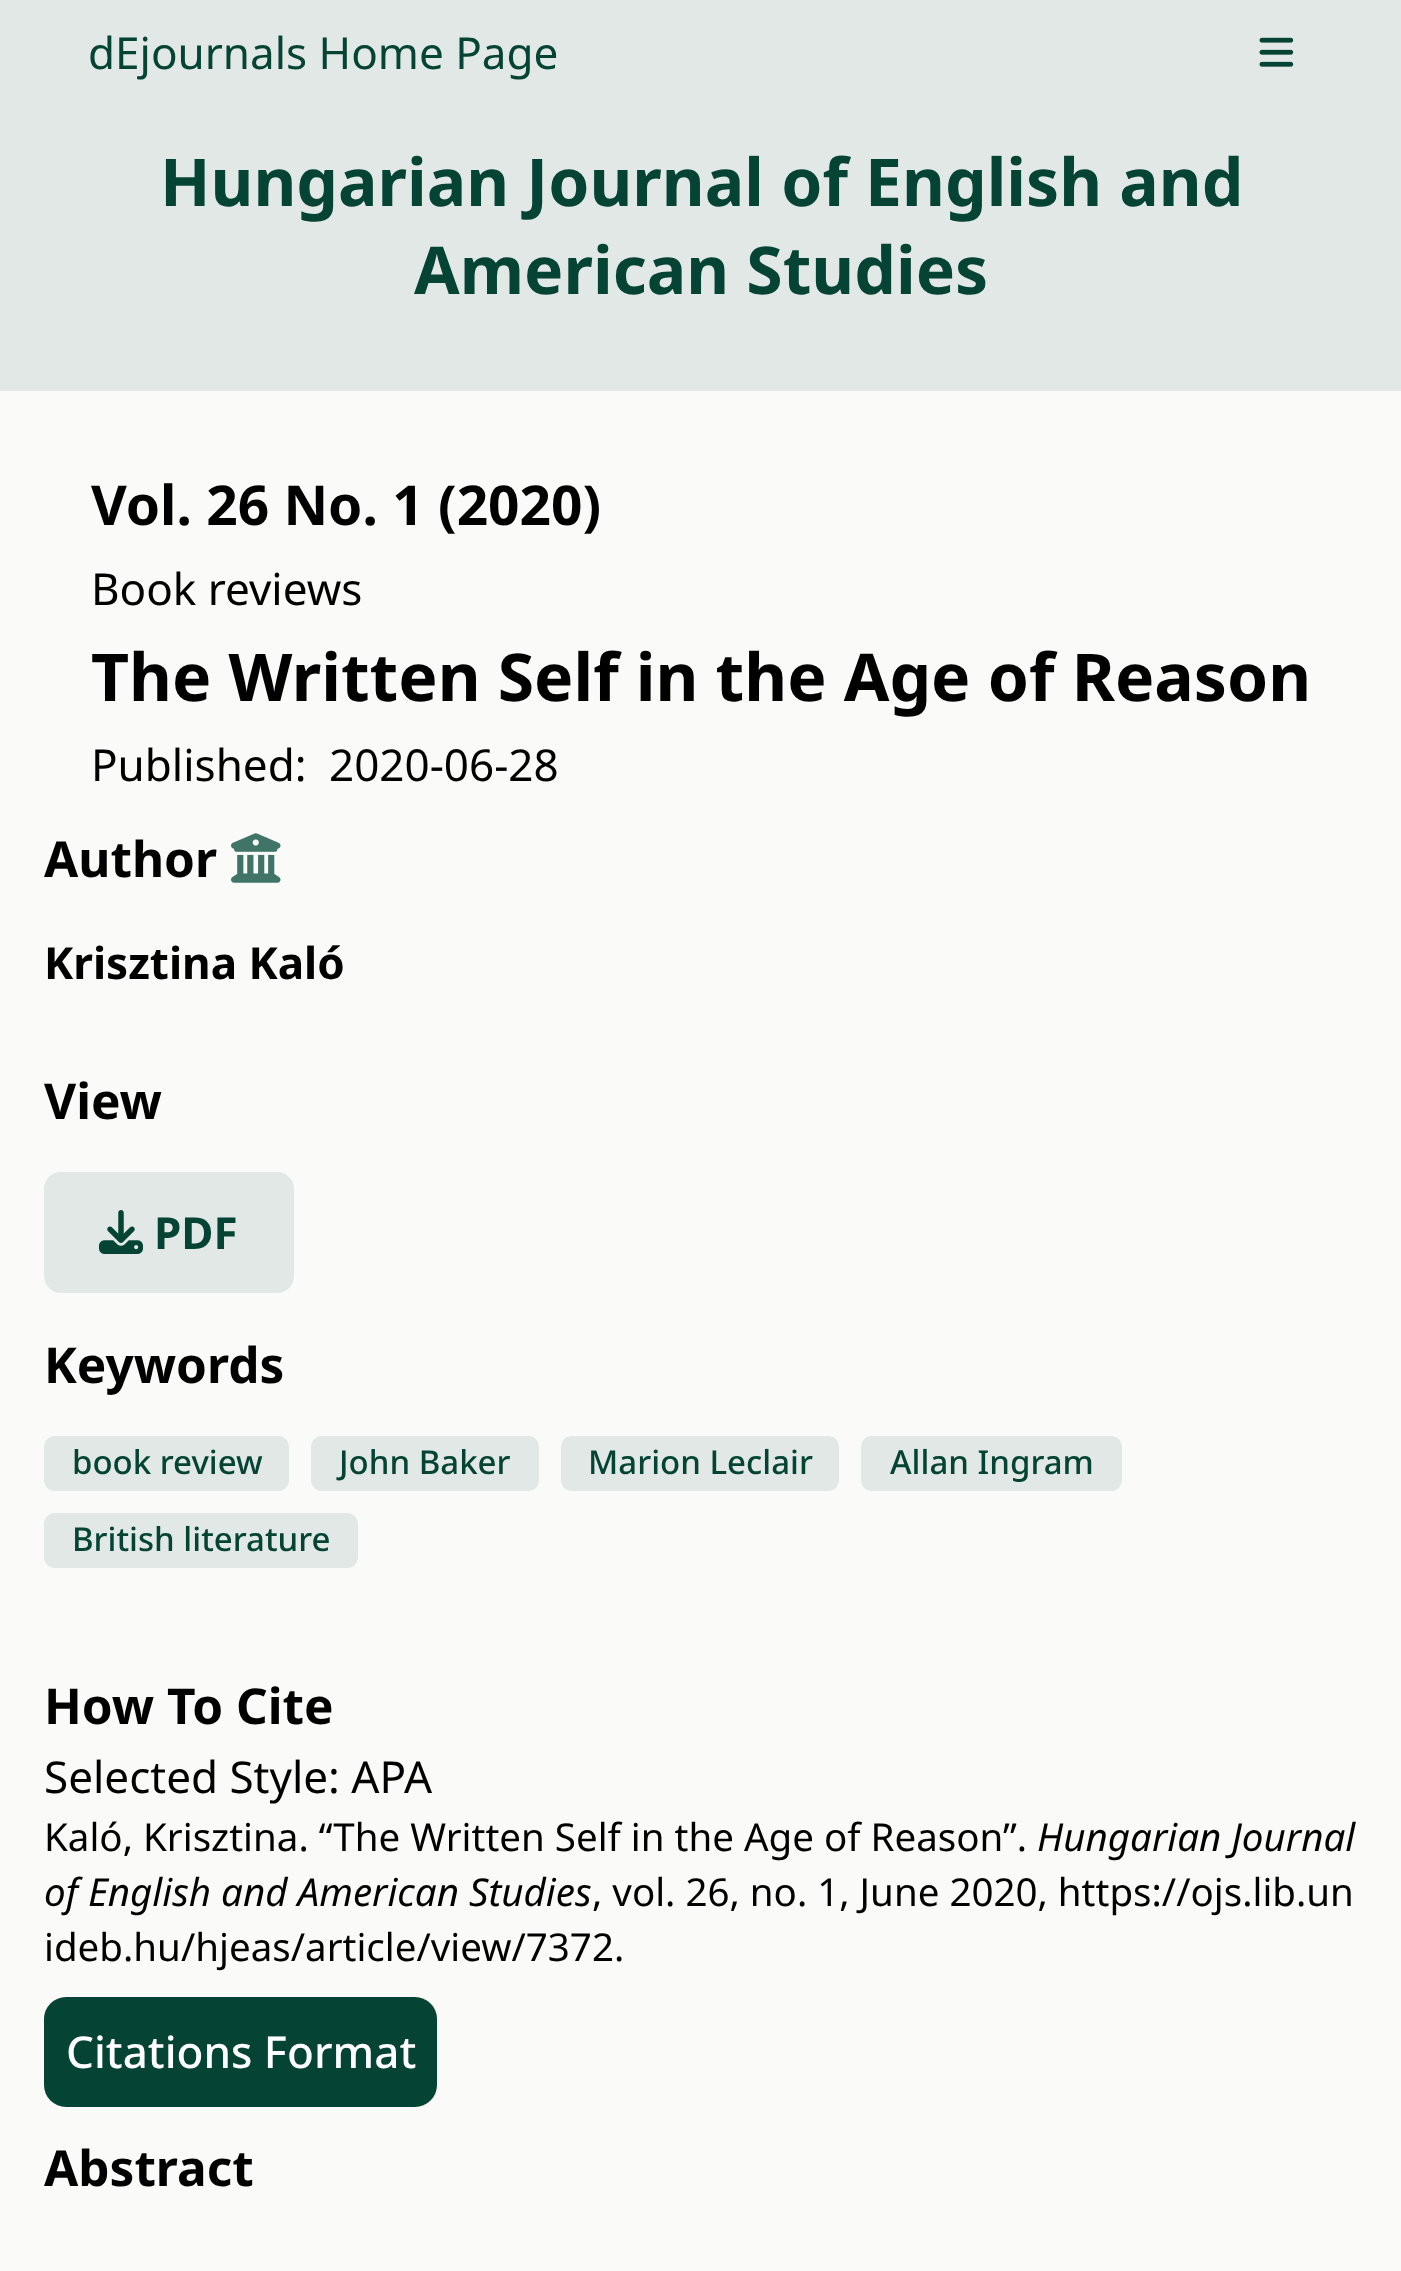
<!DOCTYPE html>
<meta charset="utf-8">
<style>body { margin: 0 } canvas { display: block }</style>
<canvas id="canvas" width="1401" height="2271"></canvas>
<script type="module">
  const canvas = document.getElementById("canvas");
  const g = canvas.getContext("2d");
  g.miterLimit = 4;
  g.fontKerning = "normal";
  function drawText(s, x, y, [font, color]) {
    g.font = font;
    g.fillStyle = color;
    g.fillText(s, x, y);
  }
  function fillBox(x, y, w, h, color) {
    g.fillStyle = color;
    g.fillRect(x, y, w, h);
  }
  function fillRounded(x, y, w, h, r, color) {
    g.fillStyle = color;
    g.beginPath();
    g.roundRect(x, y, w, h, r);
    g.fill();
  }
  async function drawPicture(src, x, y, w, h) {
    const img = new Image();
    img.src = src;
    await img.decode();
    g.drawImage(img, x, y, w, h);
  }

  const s1 = ["44px Noto Sans", "#054434"];
  const s2 = ["bold 66px Noto Sans", "#054434"];
  const s3 = ["bold 55px Noto Sans", "#000000"];
  const s4 = ["44px Noto Sans", "#000000"];
  const s5 = ["bold 66px Noto Sans", "#000000"];
  const s6 = ["bold 49.5px Noto Sans", "#000000"];
  const s7 = ["bold 44px Noto Sans", "#000000"];
  const s8 = ["bold 44px Noto Sans", "#054434"];
  const s9 = ["500 33px Noto Sans", "#054434"];
  const s10 = ["38.5px Noto Sans", "#000000"];
  const s11 = ["italic 38.5px Noto Sans", "#000000"];
  const s12 = ["500 44px Noto Sans", "#FFFFFF"];

  fillBox(0, 0, 1401, 2271, "#FAFAF9");
  fillBox(0, 0, 1401, 391, "#E1E8E6");
  drawText("dEjournals Home Page", 88, 69, s1);
  await drawPicture("pic1.png", 1259, 37, 35, 30);
  drawText("Hungarian Journal of English and", 160, 206, s2);
  drawText("American Studies", 414, 294, s2);
  drawText("Vol. 26 No. 1 (2020)", 91, 525, s3);
  drawText("Book reviews", 91, 605, s4);
  drawText("The Written Self in the Age of Reason", 91, 701, s5);
  drawText("Published:", 91, 781, s4);
  drawText("2020-06-28", 329, 781, s4);
  drawText("Author", 44, 877, s6);
  await drawPicture("pic2.png", 231, 833, 50, 50);
  drawText("Krisztina Kaló", 44, 979, s7);
  drawText("View", 44, 1119, s6);
  fillRounded(44, 1172, 250, 121, 17, "#E1E8E6");
  await drawPicture("pic3.png", 99, 1210, 44, 44);
  drawText("PDF", 154, 1249, s8);
  drawText("Keywords", 44, 1383, s6);
  fillRounded(44, 1436, 245, 55, 11, "#E1E8E6");
  drawText("book review", 72, 1474, s9);
  fillRounded(311, 1436, 228, 55, 11, "#E1E8E6");
  drawText("John Baker", 339, 1474, s9);
  fillRounded(561, 1436, 278, 55, 11, "#E1E8E6");
  drawText("Marion Leclair", 588, 1474, s9);
  fillRounded(861, 1436, 261, 55, 11, "#E1E8E6");
  drawText("Allan Ingram", 890, 1474, s9);
  fillRounded(44, 1513, 314, 55, 11, "#E1E8E6");
  drawText("British literature", 72, 1551, s9);
  drawText("How To Cite", 44, 1724, s6);
  drawText("Selected Style: APA", 44, 1793, s4);
  drawText("Kaló, Krisztina. “The Written Self in the Age of Reason”.", 44, 1851, s10);
  drawText("Hungarian Journal", 1037, 1851, s11);
  drawText("of English and American Studies", 44, 1906, s11);
  drawText(", vol. 26, no. 1, June 2020, https://ojs.lib.un", 592, 1906, s10);
  drawText("ideb.hu/hjeas/article/view/7372.", 44, 1961, s10);
  fillRounded(44, 1997, 393, 110, 22, "#054434");
  drawText("Citations Format", 66, 2068, s12);
  drawText("Abstract", 44, 2186, s6);
</script>
